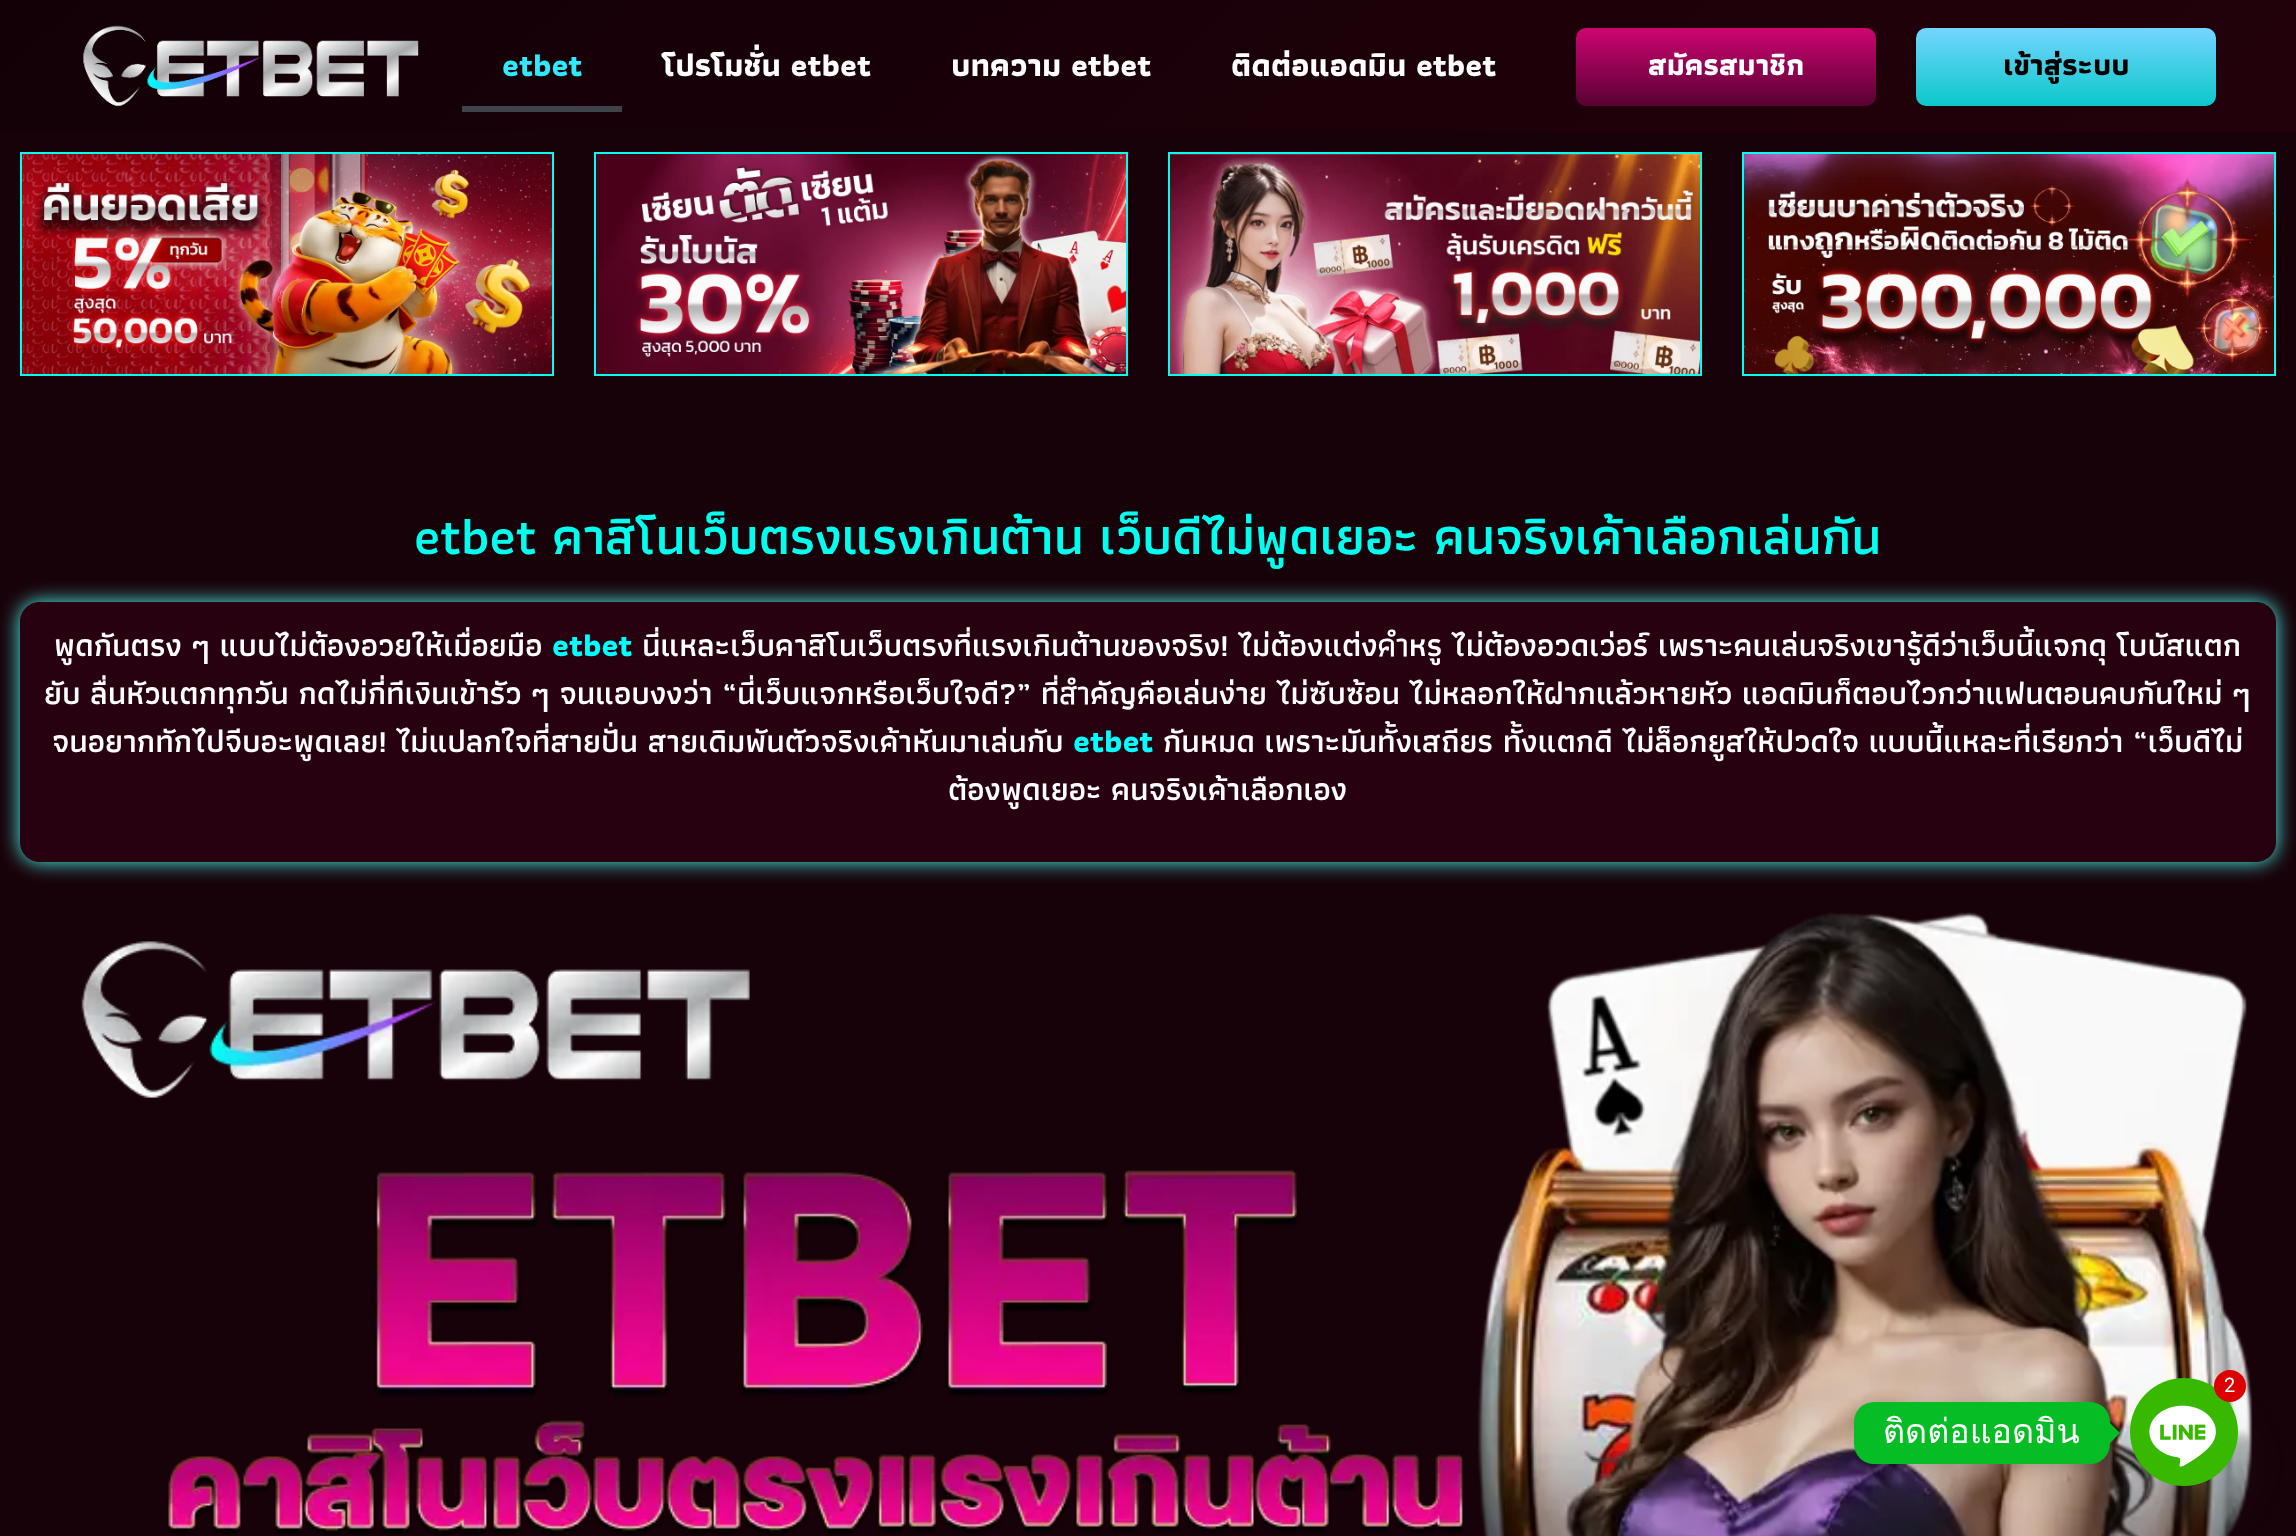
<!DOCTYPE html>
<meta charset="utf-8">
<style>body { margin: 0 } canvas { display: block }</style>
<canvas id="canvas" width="2296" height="1536"></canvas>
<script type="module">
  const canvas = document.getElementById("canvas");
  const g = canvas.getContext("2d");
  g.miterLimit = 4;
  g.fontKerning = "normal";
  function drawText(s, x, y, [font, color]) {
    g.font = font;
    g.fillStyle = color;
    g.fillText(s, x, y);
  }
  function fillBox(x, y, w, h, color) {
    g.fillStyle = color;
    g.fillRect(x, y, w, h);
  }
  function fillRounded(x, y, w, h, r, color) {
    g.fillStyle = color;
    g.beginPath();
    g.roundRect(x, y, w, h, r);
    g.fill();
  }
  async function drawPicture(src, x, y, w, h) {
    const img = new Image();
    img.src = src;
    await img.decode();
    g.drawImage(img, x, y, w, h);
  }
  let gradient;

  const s1 = ["bold 32px Athiti", "#31E9FC"];
  const s2 = ["bold 32px Athiti", "#FFFFFF"];
  const s3 = ["bold 30px Athiti", "#FFFFFF"];
  const s4 = ["bold 30px Athiti", "#000000"];
  const s5 = ["600 52px Athiti", "#01FFEF"];
  const s6 = ["600 32px Athiti", "#FFFFFF"];
  const s7 = ["bold 32px Athiti", "#00FFFF"];
  const s8 = ["20px Roboto", "#FFFFFF"];
  const s9 = ["34px Loma", "#FFFFFF"];

  fillBox(0, 0, 2296, 1536, "#180209");
  gradient = g.createLinearGradient(581, -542, 1715, 674);
  gradient.addColorStop(0, "#130007");
  gradient.addColorStop(1, "#22010A");
  g.fillStyle = gradient;
  g.fillRect(0, 0, 2296, 132);
  await drawPicture("pic1.png", 83, 25, 336, 82);
  drawText("etbet", 502, 76, s1);
  fillBox(462, 106, 160, 6, "#3F444B");
  drawText("โปรโมชั่น etbet", 662, 76, s2);
  drawText("บทความ etbet", 951, 76, s2);
  drawText("ติดต่อแอดมิน etbet", 1231, 76, s2);
  gradient = g.createLinearGradient(1726, 28, 1726, 106);
  gradient.addColorStop(0, "#CE0570");
  gradient.addColorStop(1, "#570133");
  g.fillStyle = gradient;
  g.beginPath();
  g.roundRect(1576, 28, 300, 78, 10);
  g.fill();
  drawText("สมัครสมาชิก", 1648, 75, s3);
  gradient = g.createLinearGradient(2066, 28, 2066, 106);
  gradient.addColorStop(0, "#74D5FF");
  gradient.addColorStop(1, "#0BC8CA");
  g.fillStyle = gradient;
  g.beginPath();
  g.roundRect(1916, 28, 300, 78, 10);
  g.fill();
  drawText("เข้าสู่ระบบ", 2003, 75, s4);
  g.strokeStyle = "#01FFEF";
  g.lineWidth = 2;
  g.strokeRect(21, 153, 532, 222);
  await drawPicture("pic2.png", 22, 154, 530, 220);
  g.strokeRect(595, 153, 532, 222);
  await drawPicture("pic3.png", 596, 154, 530, 220);
  g.strokeRect(1169, 153, 532, 222);
  await drawPicture("pic4.png", 1170, 154, 530, 220);
  g.strokeRect(1743, 153, 532, 222);
  await drawPicture("pic5.png", 1744, 154, 530, 220);
  drawText("etbet คาสิโนเว็บตรงแรงเกินต้าน เว็บดีไม่พูดเยอะ คนจริงเค้าเลือกเล่นกัน", 414, 554, s5);
  g.save();
  g.beginPath();
  g.moveTo(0, 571);
  g.lineTo(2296, 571);
  g.lineTo(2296, 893);
  g.lineTo(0, 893);
  g.closePath();
  g.moveTo(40, 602);
  g.lineTo(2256, 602);
  g.bezierCurveTo(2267, 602, 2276, 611, 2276, 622);
  g.lineTo(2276, 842);
  g.bezierCurveTo(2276, 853, 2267, 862, 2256, 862);
  g.lineTo(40, 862);
  g.bezierCurveTo(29, 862, 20, 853, 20, 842);
  g.lineTo(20, 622);
  g.bezierCurveTo(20, 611, 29, 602, 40, 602);
  g.closePath();
  g.clip("evenodd");
  g.fillStyle = "#49FFF4";
  g.filter = "blur(10px)";
  g.beginPath();
  g.roundRect(20, 602, 2256, 260, 20);
  g.fill();
  g.filter = "none";
  g.restore();
  fillRounded(20, 602, 2256, 260, 20, "rgba(97, 0, 49, 0.23)");
  drawText("พูดกันตรง ๆ แบบไม่ต้องอวยให้เมื่อยมือ", 54, 656, s6);
  drawText("etbet", 552, 656, s7);
  drawText("นี่แหละเว็บคาสิโนเว็บตรงที่แรงเกินต้านของจริง! ไม่ต้องแต่งคำหรู ไม่ต้องอวดเว่อร์ เพราะคนเล่นจริงเขารู้ดีว่าเว็บนี้แจกดุ โบนัสแตก", 642, 656, s6);
  drawText("ยับ ลื่นหัวแตกทุกวัน กดไม่กี่ทีเงินเข้ารัว ๆ จนแอบงงว่า “นี่เว็บแจกหรือเว็บใจดี?” ที่สำคัญคือเล่นง่าย ไม่ซับซ้อน ไม่หลอกให้ฝากแล้วหายหัว แอดมินก็ตอบไวกว่าแฟนตอนคบกันใหม่ ๆ", 44, 704, s6);
  drawText("จนอยากทักไปจีบอะพูดเลย! ไม่แปลกใจที่สายปั่น สายเดิมพันตัวจริงเค้าหันมาเล่นกับ", 52, 752, s6);
  drawText("etbet", 1073, 752, s7);
  drawText("กันหมด เพราะมันทั้งเสถียร ทั้งแตกดี ไม่ล็อกยูสให้ปวดใจ แบบนี้แหละที่เรียกว่า “เว็บดีไม่", 1163, 752, s6);
  drawText("ต้องพูดเยอะ คนจริงเค้าเลือกเอง", 948, 800, s6);
  await drawPicture("pic6.png", 81, 911, 2172, 625);
  g.fillStyle = "rgba(73, 104, 126, 0.16)";
  g.filter = "blur(24px)";
  g.beginPath();
  g.roundRect(2130, 1410, 108, 108, 54);
  g.fill();
  g.filter = "none";
  await drawPicture("pic7.png", 2130, 1378, 108, 108);
  g.fillStyle = "#DD0000";
  g.beginPath();
  g.arc(2230, 1386, 16, 0, Math.PI * 2);
  g.fill();
  drawText("2", 2224, 1392, s8);
  g.fillStyle = "rgba(0, 0, 0, 0.15)";
  g.filter = "blur(7.5px)";
  g.beginPath();
  g.roundRect(1854, 1404, 256, 62, 20);
  g.fill();
  g.filter = "none";
  fillRounded(1854, 1402, 256, 62, 20, "#07BD25");
  drawText("ติดต่อแอดมิน", 1883, 1443, s9);
  g.fillStyle = "#07BD25";
  g.beginPath();
  g.moveTo(2110, 1443);
  g.lineTo(2110, 1423);
  g.lineTo(2120, 1433);
  g.closePath();
  g.fill();
</script>
